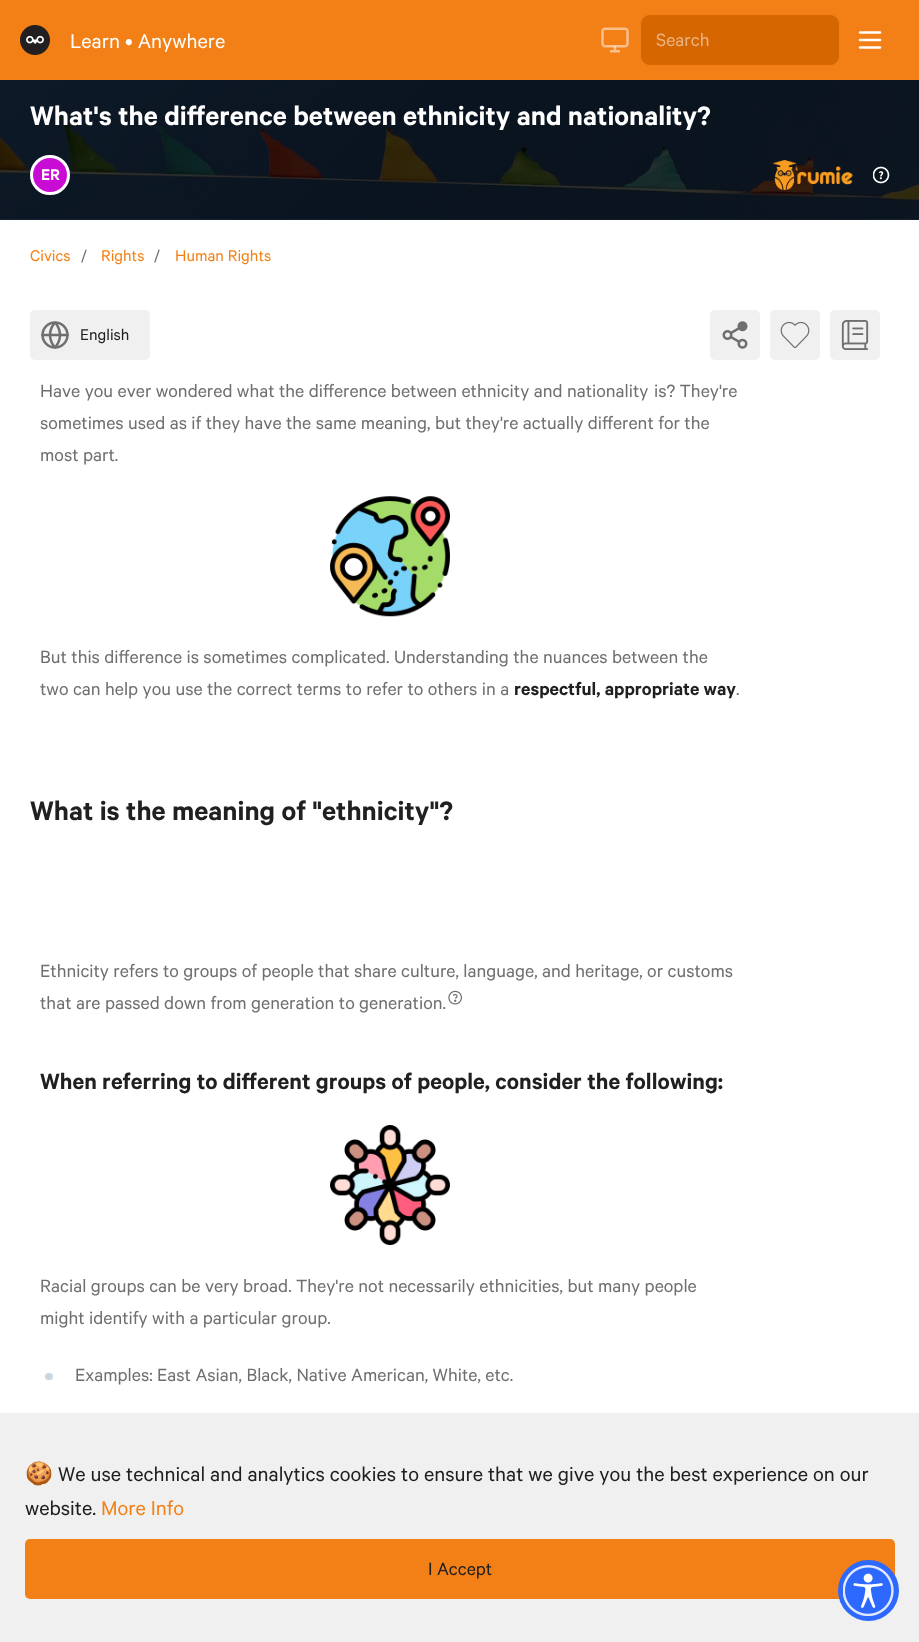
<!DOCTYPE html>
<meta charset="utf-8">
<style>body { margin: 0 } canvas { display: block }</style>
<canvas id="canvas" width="919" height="1642"></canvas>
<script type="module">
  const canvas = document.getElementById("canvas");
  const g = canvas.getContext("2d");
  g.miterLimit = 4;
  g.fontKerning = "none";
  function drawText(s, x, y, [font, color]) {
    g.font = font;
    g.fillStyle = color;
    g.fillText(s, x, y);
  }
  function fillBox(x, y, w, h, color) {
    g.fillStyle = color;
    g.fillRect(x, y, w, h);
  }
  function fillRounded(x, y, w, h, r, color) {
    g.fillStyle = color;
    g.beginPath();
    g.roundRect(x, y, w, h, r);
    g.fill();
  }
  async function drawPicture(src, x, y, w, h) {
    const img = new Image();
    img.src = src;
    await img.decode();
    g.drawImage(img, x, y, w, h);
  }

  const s1 = ["22.5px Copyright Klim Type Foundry", "#FFFFFF"];
  const s2 = ["20px Copyright Klim Type Foundry", "#EBB380"];
  const s3 = ["600 30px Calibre", "#FFFFFF"];
  const s4 = ["600 17.5px Calibre", "#FFFFFF"];
  const s5 = ["17.5px Copyright Klim Type Foundry", "#F28017"];
  const s6 = ["17.5px Copyright Klim Type Foundry", "#6F6F6F"];
  const s7 = ["17.5px Copyright Klim Type Foundry", "#202020"];
  const s8 = ["20px Copyright Klim Type Foundry", "#6F6F6F"];
  const s9 = ["600 20px Calibre", "#202020"];
  const s10 = ["600 30px Calibre", "#202020"];
  const s11 = ["600 25px Calibre", "#202020"];
  const s12 = ["22.5px Noto Color Emoji", "#202020"];
  const s13 = ["22.5px Copyright Klim Type Foundry", "#202020"];
  const s14 = ["22.5px Copyright Klim Type Foundry", "#F28017"];
  const s15 = ["20px Copyright Klim Type Foundry", "#202020"];

  fillBox(0, 0, 919, 1642, "#FFFFFF");
  fillBox(0, 0, 919, 80, "#F28017");
  await drawPicture("pic1.png", 20, 25, 30, 30);
  drawText("Learn • Anywhere", 70, 48, s1);
  await drawPicture("pic2.png", 601, 27, 28, 26);
  g.fillStyle = "#D66600";
  g.beginPath();
  g.roundRect(640.5, 14.5, 199, 51, 9.5);
  g.fill();
  g.strokeStyle = "#F28017";
  g.stroke();
  drawText("Search", 656, 46, s2);
  g.beginPath();
  g.moveTo(860, 32.5);
  g.lineTo(880, 32.5);
  g.moveTo(860, 40);
  g.lineTo(880, 40);
  g.moveTo(860, 47.5);
  g.lineTo(880, 47.5);
  g.strokeStyle = "#FFFFFF";
  g.lineWidth = 2.5;
  g.lineCap = "round";
  g.lineJoin = "round";
  g.stroke();
  await drawPicture("pic3.png", 0, 80, 919, 140);
  drawText("What's the difference between ethnicity and nationality?", 30, 125, s3);
  g.fillStyle = "#C90CD3";
  g.beginPath();
  g.arc(50, 175, 18.5, 0, Math.PI * 2);
  g.fill();
  g.lineWidth = 3;
  g.stroke();
  drawText("ER", 41, 180, s4);
  await drawPicture("pic4.png", 772, 160, 81, 30);
  await drawPicture("pic5.png", 873, 166, 17, 18);
  drawText("Civics", 30, 261, s5);
  drawText("/", 81, 261, s6);
  drawText("Rights", 101, 261, s5);
  drawText("/", 154, 261, s6);
  drawText("Human Rights", 175, 261, s5);
  fillRounded(30, 310, 120, 50, 5, "#F0F0F0");
  await drawPicture("pic6.png", 41, 321, 28, 28);
  drawText("English", 80, 340, s7);
  fillRounded(710, 310, 50, 50, 5, "#F0F0F0");
  await drawPicture("pic7.png", 722, 321, 26, 28);
  fillRounded(770, 310, 50, 50, 5, "#F0F0F0");
  await drawPicture("pic8.png", 780, 321, 30, 27);
  fillRounded(830, 310, 50, 50, 5, "#F0F0F0");
  await drawPicture("pic9.png", 841, 320, 28, 30);
  drawText("Have you ever wondered what the difference between ethnicity and nationality", 40, 397, s8);
  drawText("is? They're", 654, 397, s8);
  drawText("sometimes used as if they have the same meaning, but they're actually different for the", 40, 429, s8);
  drawText("most part.", 40, 461, s8);
  await drawPicture("pic10.png", 330, 496, 120, 121);
  drawText("But this difference is sometimes complicated. Understanding the nuances between the", 40, 663, s8);
  drawText("two can help you use the correct terms to refer to others in a", 40, 695, s8);
  drawText("respectful, appropriate way", 514, 695, s9);
  drawText(".", 736, 695, s8);
  drawText("What is the meaning of \"ethnicity\"?", 30, 820, s10);
  drawText("Ethnicity refers to groups of people that share culture, language, and heritage, or customs", 40, 977, s8);
  drawText("that are passed down from generation to generation.", 40, 1009, s8);
  await drawPicture("pic11.png", 448, 990, 14, 15);
  drawText("When referring to different groups of people, consider the following:", 40, 1089, s11);
  await drawPicture("pic12.png", 330, 1125, 120, 120);
  drawText("Racial groups can be very broad. They're not necessarily ethnicities, but many people", 40, 1292, s8);
  drawText("might identify with a particular group.", 40, 1324, s8);
  fillRounded(45, 1373, 8, 7, 3.5, "#CBD5E0");
  drawText("Examples: East Asian, Black, Native American, White, etc.", 75, 1381, s8);
  fillBox(0, 1413, 919, 229, "#F0F0F0");
  drawText("🍪", 25, 1481, s12);
  drawText("We use technical and analytics cookies to ensure that we give you the best experience on our", 58, 1481, s13);
  drawText("website.", 25, 1515, s13);
  drawText("More Info", 101, 1515, s14);
  fillRounded(25, 1539, 870, 60, 5, "#F28017");
  drawText("I Accept", 428, 1575, s15);
  g.fillStyle = "#2D68FF";
  g.beginPath();
  g.arc(868.5, 1590.5, 30.5, 0, Math.PI * 2);
  g.fill();
  await drawPicture("pic13.png", 843, 1565, 51, 51);
</script>
